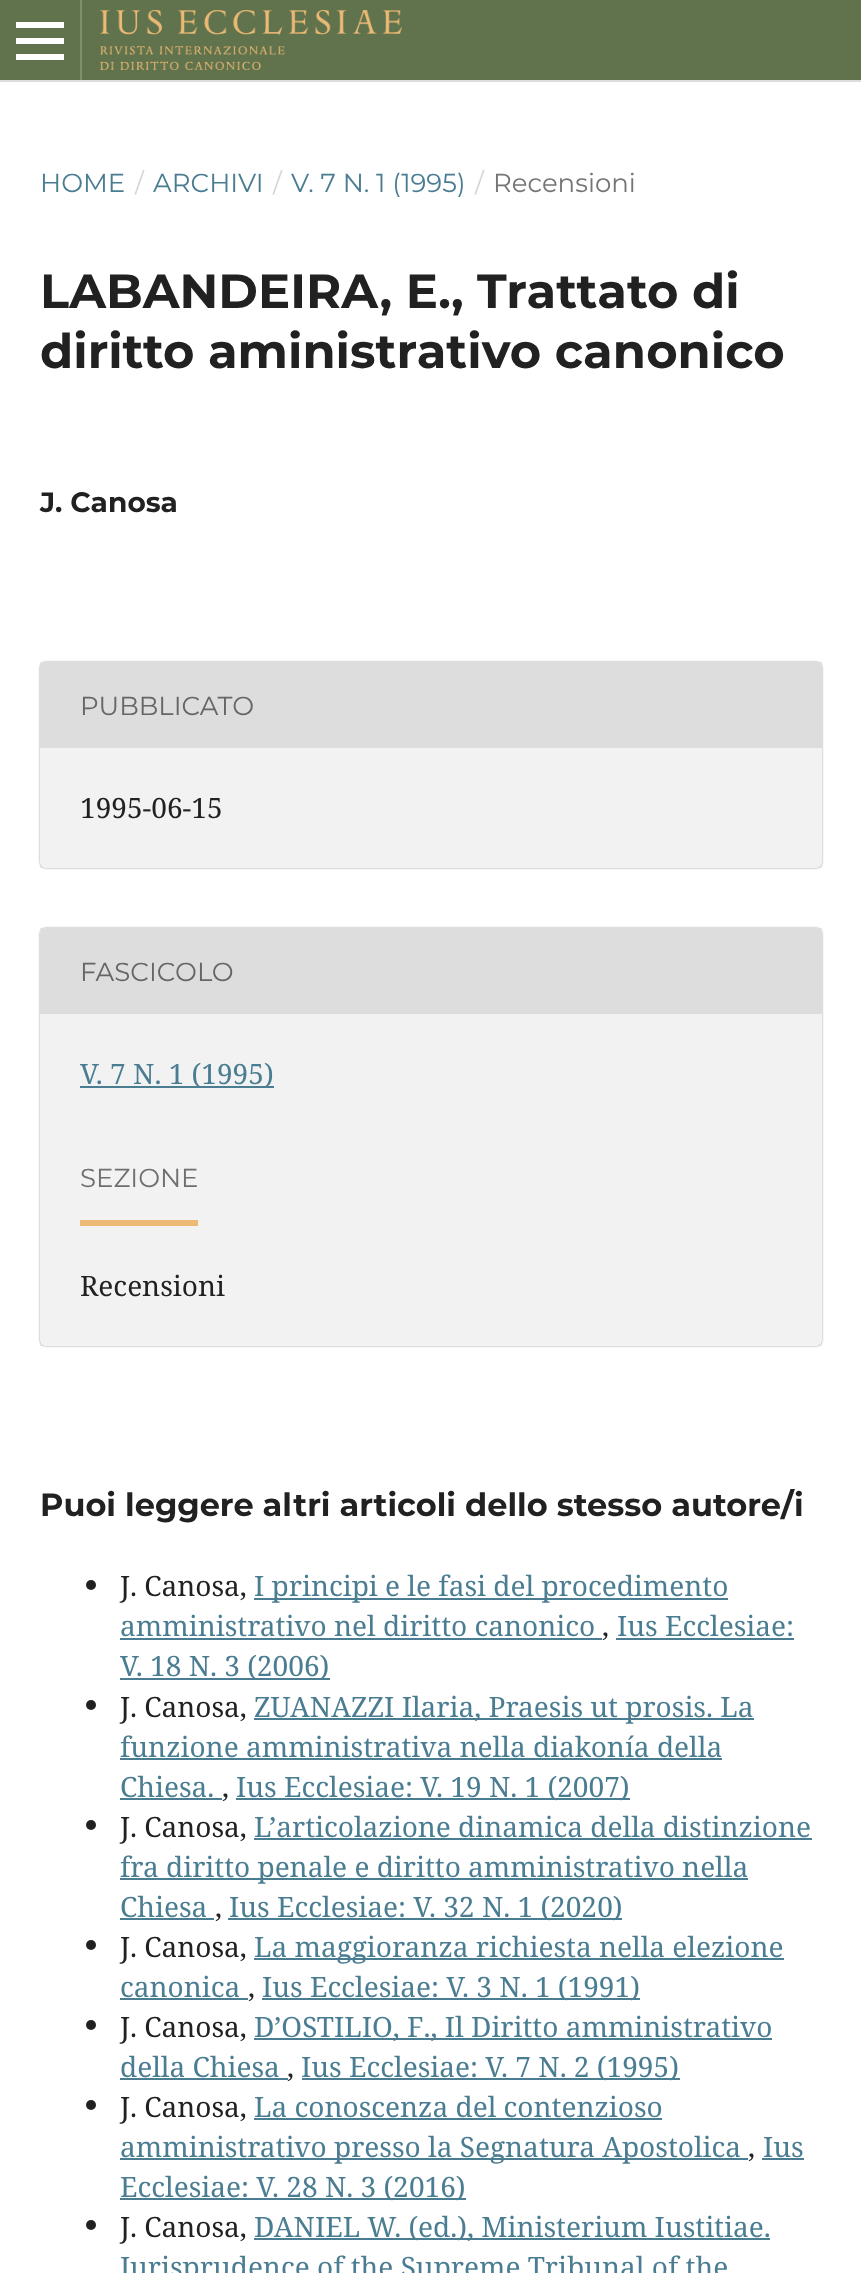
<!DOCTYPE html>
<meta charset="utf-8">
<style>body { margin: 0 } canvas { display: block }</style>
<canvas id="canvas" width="861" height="2273"></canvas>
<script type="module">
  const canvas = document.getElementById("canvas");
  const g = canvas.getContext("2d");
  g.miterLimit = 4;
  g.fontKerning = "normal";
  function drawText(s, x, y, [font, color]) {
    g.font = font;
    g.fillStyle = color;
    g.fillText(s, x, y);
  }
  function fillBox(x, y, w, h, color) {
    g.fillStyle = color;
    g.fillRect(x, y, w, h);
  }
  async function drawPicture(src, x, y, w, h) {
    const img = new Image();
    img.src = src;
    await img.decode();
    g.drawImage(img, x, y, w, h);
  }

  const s1 = ["26px Montserrat", "#4B7D92"];
  const s2 = ["26px Montserrat", "#D6D6D6"];
  const s3 = ["26px Montserrat", "#757575"];
  const s4 = ["bold 48px Montserrat", "#212121"];
  const s5 = ["bold 28px Montserrat", "#212121"];
  const s6 = ["26px Montserrat", "#666666"];
  const s7 = ["28px Noto Serif", "#212121"];
  const s8 = ["28px Noto Serif", "#4B7D92"];
  const s9 = ["26px Montserrat", "#6F6F6F"];
  const s10 = ["bold 32px Montserrat", "#212121"];

  fillBox(0, 0, 861, 2273, "#FFFFFF");
  fillBox(0, 0, 861, 80, "#61734C");
  fillBox(0, 80, 861, 2, "#DDDDDD");
  fillBox(80, 0, 2, 80, "#818F70");
  fillBox(16, 54, 48, 6, "#FFFFFF");
  fillBox(16, 22, 48, 6, "#FFFFFF");
  fillBox(16, 38, 48, 6, "#FFFFFF");
  await drawPicture("pic1.png", 100, 10, 302, 60);
  drawText("HOME", 40, 192, s1);
  drawText("/", 135, 192, s2);
  drawText("ARCHIVI", 153, 192, s1);
  drawText("/", 273, 192, s2);
  drawText("V. 7 N. 1 (1995)", 291, 192, s1);
  drawText("/", 475, 192, s2);
  drawText("Recensioni", 493, 192, s3);
  drawText("LABANDEIRA, E., Trattato di", 40, 308, s4);
  drawText("diritto aministrativo canonico", 40, 368, s4);
  drawText("J. Canosa", 40, 512, s5);
  g.save();
  g.beginPath();
  g.moveTo(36, 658);
  g.lineTo(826, 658);
  g.lineTo(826, 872);
  g.lineTo(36, 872);
  g.closePath();
  g.moveTo(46, 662);
  g.lineTo(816, 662);
  g.bezierCurveTo(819.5, 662, 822, 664.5, 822, 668);
  g.lineTo(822, 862);
  g.bezierCurveTo(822, 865.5, 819.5, 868, 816, 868);
  g.lineTo(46, 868);
  g.bezierCurveTo(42.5, 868, 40, 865.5, 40, 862);
  g.lineTo(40, 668);
  g.bezierCurveTo(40, 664.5, 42.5, 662, 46, 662);
  g.closePath();
  g.clip("evenodd");
  g.fillStyle = "rgba(0, 0, 0, 0.4)";
  g.filter = "blur(1px)";
  g.beginPath();
  g.roundRect(40, 662, 782, 206, 6);
  g.fill();
  g.filter = "none";
  g.restore();
  fillBox(40, 662, 782, 206, "rgba(0, 0, 0, 0.05)");
  g.fillStyle = "#DDDDDD";
  g.beginPath();
  g.roundRect(40, 662, 782, 86, [6, 6, 0, 0]);
  g.fill();
  drawText("PUBBLICATO", 80, 715, s6);
  drawText("1995-06-15", 80, 818, s7);
  g.save();
  g.beginPath();
  g.moveTo(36, 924);
  g.lineTo(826, 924);
  g.lineTo(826, 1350);
  g.lineTo(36, 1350);
  g.closePath();
  g.moveTo(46, 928);
  g.lineTo(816, 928);
  g.bezierCurveTo(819.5, 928, 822, 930.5, 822, 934);
  g.lineTo(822, 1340);
  g.bezierCurveTo(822, 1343.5, 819.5, 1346, 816, 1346);
  g.lineTo(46, 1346);
  g.bezierCurveTo(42.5, 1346, 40, 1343.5, 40, 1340);
  g.lineTo(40, 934);
  g.bezierCurveTo(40, 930.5, 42.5, 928, 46, 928);
  g.closePath();
  g.clip("evenodd");
  g.fillStyle = "rgba(0, 0, 0, 0.4)";
  g.filter = "blur(1px)";
  g.beginPath();
  g.roundRect(40, 928, 782, 418, 6);
  g.fill();
  g.filter = "none";
  g.restore();
  fillBox(40, 928, 782, 418, "rgba(0, 0, 0, 0.05)");
  g.fillStyle = "#DDDDDD";
  g.beginPath();
  g.roundRect(40, 928, 782, 86, [6, 6, 0, 0]);
  g.fill();
  drawText("FASCICOLO", 80, 981, s6);
  fillBox(80, 1086, 194, 2, "#4B7D92");
  drawText("V. 7 N. 1 (1995)", 80, 1084, s8);
  fillBox(80, 1220, 118, 6, "#ECBA75");
  drawText("SEZIONE", 80, 1187, s9);
  drawText("Recensioni", 80, 1296, s7);
  drawText("Puoi leggere altri articoli dello stesso autore/i", 40, 1516, s10);
  g.beginPath();
  g.arc(91, 1585, 5, 0, Math.PI * 2);
  g.fill();
  drawText("J. Canosa,", 120, 1596, s7);
  fillBox(254, 1598, 474, 2, "#4B7D92");
  drawText("I principi e le fasi del procedimento", 254, 1596, s8);
  drawText("amministrativo nel diritto canonico", 120, 1636, s8);
  fillBox(120, 1638, 482, 2, "#4B7D92");
  drawText(",", 602, 1636, s7);
  drawText("Ius Ecclesiae:", 617, 1636, s8);
  fillBox(616, 1638, 178, 2, "#4B7D92");
  fillBox(120, 1678, 210, 2, "#4B7D92");
  drawText("V. 18 N. 3 (2006)", 120, 1676, s8);
  g.fillStyle = "#212121";
  g.beginPath();
  g.arc(91, 1705, 5, 0, Math.PI * 2);
  g.fill();
  drawText("J. Canosa,", 120, 1717, s7);
  fillBox(254, 1718, 500, 2, "#4B7D92");
  drawText("ZUANAZZI Ilaria, Praesis ut prosis. La", 254, 1717, s8);
  drawText("funzione amministrativa nella diakonía della", 120, 1757, s8);
  fillBox(120, 1758, 602, 2, "#4B7D92");
  drawText("Chiesa.", 120, 1797, s8);
  fillBox(120, 1798, 102, 2, "#4B7D92");
  drawText(",", 222, 1797, s7);
  fillBox(236, 1798, 394, 2, "#4B7D92");
  drawText("Ius Ecclesiae: V. 19 N. 1 (2007)", 236, 1797, s8);
  g.fillStyle = "#212121";
  g.beginPath();
  g.arc(91, 1825, 5, 0, Math.PI * 2);
  g.fill();
  drawText("J. Canosa,", 120, 1837, s7);
  drawText("L’articolazione dinamica della distinzione", 254, 1837, s8);
  fillBox(254, 1838, 558, 2, "#4B7D92");
  fillBox(120, 1878, 628, 2, "#4B7D92");
  drawText("fra diritto penale e diritto amministrativo nella", 120, 1877, s8);
  drawText("Chiesa", 120, 1917, s8);
  fillBox(120, 1918, 94, 2, "#4B7D92");
  drawText(",", 215, 1917, s7);
  fillBox(228, 1918, 394, 2, "#4B7D92");
  drawText("Ius Ecclesiae: V. 32 N. 1 (2020)", 229, 1917, s8);
  g.fillStyle = "#212121";
  g.beginPath();
  g.arc(91, 1945, 5, 0, Math.PI * 2);
  g.fill();
  drawText("J. Canosa,", 120, 1957, s7);
  fillBox(254, 1958, 530, 2, "#4B7D92");
  drawText("La maggioranza richiesta nella elezione", 254, 1957, s8);
  drawText("canonica", 120, 1997, s8);
  fillBox(120, 1998, 128, 2, "#4B7D92");
  drawText(",", 248, 1997, s7);
  fillBox(262, 1998, 378, 2, "#4B7D92");
  drawText("Ius Ecclesiae: V. 3 N. 1 (1991)", 262, 1997, s8);
  g.fillStyle = "#212121";
  g.beginPath();
  g.arc(91, 2025, 5, 0, Math.PI * 2);
  g.fill();
  drawText("J. Canosa,", 120, 2037, s7);
  fillBox(254, 2038, 518, 2, "#4B7D92");
  drawText("D’OSTILIO, F., Il Diritto amministrativo", 254, 2037, s8);
  drawText("della Chiesa", 120, 2077, s8);
  fillBox(120, 2078, 168, 2, "#4B7D92");
  drawText(",", 287, 2077, s7);
  fillBox(302, 2078, 378, 2, "#4B7D92");
  drawText("Ius Ecclesiae: V. 7 N. 2 (1995)", 301, 2077, s8);
  g.fillStyle = "#212121";
  g.beginPath();
  g.arc(91, 2105, 5, 0, Math.PI * 2);
  g.fill();
  drawText("J. Canosa,", 120, 2117, s7);
  drawText("La conoscenza del contenzioso", 254, 2117, s8);
  fillBox(254, 2118, 408, 2, "#4B7D92");
  fillBox(120, 2158, 628, 2, "#4B7D92");
  drawText("amministrativo presso la Segnatura Apostolica", 120, 2157, s8);
  drawText(",", 748, 2157, s7);
  drawText("Ius", 763, 2157, s8);
  fillBox(762, 2158, 42, 2, "#4B7D92");
  fillBox(120, 2198, 346, 2, "#4B7D92");
  drawText("Ecclesiae: V. 28 N. 3 (2016)", 120, 2197, s8);
  g.fillStyle = "#212121";
  g.beginPath();
  g.arc(91, 2225, 5, 0, Math.PI * 2);
  g.fill();
  drawText("J. Canosa,", 120, 2237, s7);
  fillBox(254, 2238, 516, 2, "#4B7D92");
  drawText("DANIEL W. (ed.), Ministerium Iustitiae.", 254, 2237, s8);
  drawText("Jurisprudence of the Supreme Tribunal of the", 120, 2277, s8);
</script>
